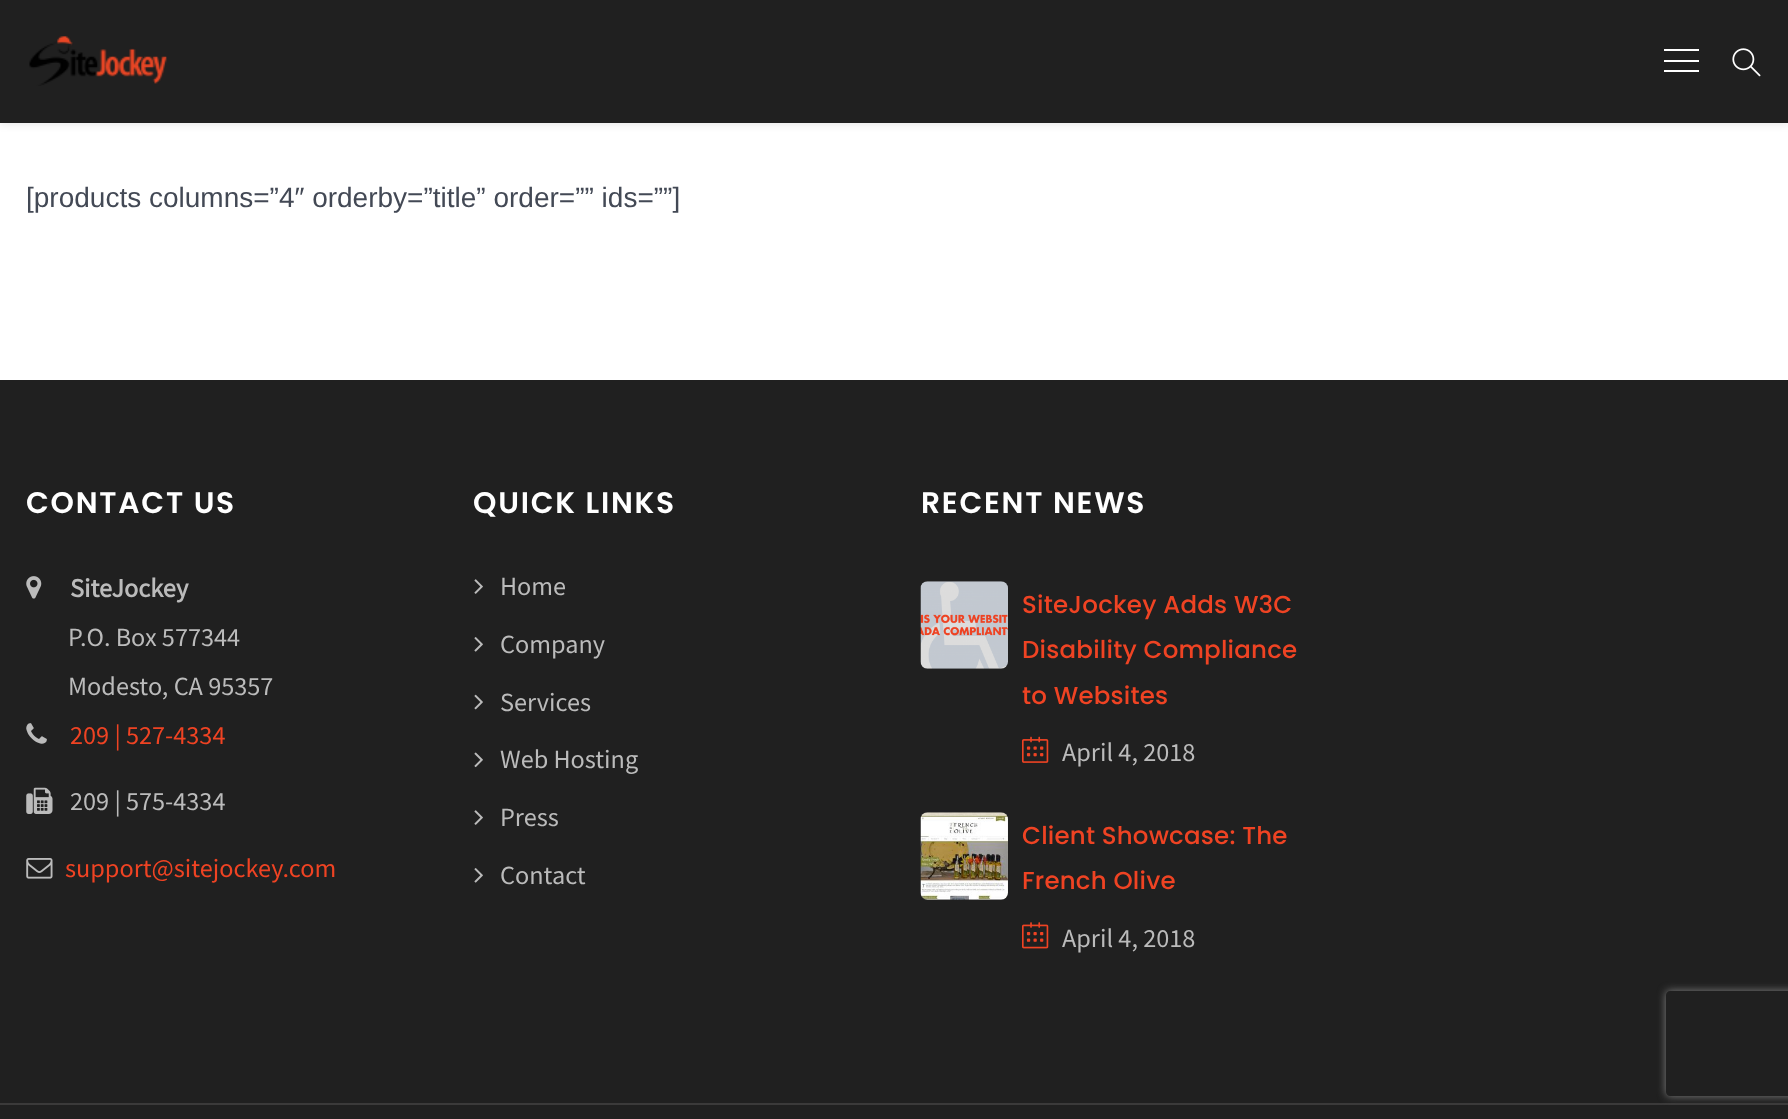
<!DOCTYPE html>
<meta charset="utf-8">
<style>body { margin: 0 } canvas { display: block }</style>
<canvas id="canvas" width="1788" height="1119"></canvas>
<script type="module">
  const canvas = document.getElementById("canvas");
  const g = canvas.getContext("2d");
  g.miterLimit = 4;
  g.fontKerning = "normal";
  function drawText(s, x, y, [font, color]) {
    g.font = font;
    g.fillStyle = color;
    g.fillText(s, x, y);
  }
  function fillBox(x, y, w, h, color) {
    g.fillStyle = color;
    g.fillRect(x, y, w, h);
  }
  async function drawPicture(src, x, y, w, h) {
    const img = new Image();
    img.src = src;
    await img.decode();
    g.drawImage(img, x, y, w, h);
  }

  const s1 = ["28px Liberation Sans", "#434955"];
  const s2 = ["600 29.75px Poppins", "#FFFFFF"];
  const s3 = ["bold 26.25px Source Sans Pro", "#BBBBBB"];
  const s4 = ["26.25px Source Sans Pro", "#BBBBBB"];
  const s5 = ["26.25px Source Sans Pro", "#EF4323"];
  const s6 = ["500 24.5px Poppins", "#EF4323"];

  fillBox(0, 0, 1788, 1119, "#FFFFFF");
  g.fillStyle = "rgba(0, 0, 0, 0.1)";
  g.filter = "blur(4.5px)";
  g.beginPath();
  g.rect(0, 2, 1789, 122);
  g.fill();
  g.filter = "none";
  fillBox(0, 0, 1788, 123, "#202020");
  await drawPicture("pic1.png", 29, 36, 138, 50);
  fillBox(1664, 60, 35, 2, "#FFFFFF");
  fillBox(1664, 49, 35, 2, "#FFFFFF");
  fillBox(1664, 70, 35, 2, "#FFFFFF");
  await drawPicture("pic2.png", 1732, 48, 29, 29);
  drawText("[products columns=”4″ orderby=”title” order=”” ids=””]", 26, 207, s1);
  fillBox(0, 380, 1788, 739, "#202020");
  g.letterSpacing = "1.75px";
  drawText("CONTACT US", 26, 513, s2);
  await drawPicture("pic3.png", 26, 576, 16, 23);
  g.letterSpacing = "0px";
  drawText("SiteJockey", 70, 597, s3);
  drawText("P.O. Box 577344", 68, 646, s4);
  drawText("Modesto, CA 95357", 68, 695, s4);
  await drawPicture("pic4.png", 26, 723, 21, 21);
  drawText("209 | 527-4334", 70, 744, s5);
  await drawPicture("pic5.png", 26, 787, 27, 27);
  drawText("209 | 575-4334", 70, 810, s4);
  await drawPicture("pic6.png", 26, 858, 27, 21);
  drawText("support@sitejockey.com", 65, 877, s5);
  g.letterSpacing = "1.75px";
  drawText("QUICK LINKS", 473, 513, s2);
  await drawPicture("pic7.png", 474, 579, 9, 15);
  g.letterSpacing = "0px";
  drawText("Home", 500, 595, s4);
  await drawPicture("pic8.png", 474, 637, 9, 15);
  drawText("Company", 500, 653, s4);
  await drawPicture("pic9.png", 474, 694, 9, 16);
  drawText("Services", 500, 711, s4);
  await drawPicture("pic10.png", 474, 752, 9, 16);
  drawText("Web Hosting", 500, 768, s4);
  await drawPicture("pic7.png", 474, 810, 9, 15);
  drawText("Press", 500, 826, s4);
  await drawPicture("pic8.png", 474, 868, 9, 15);
  drawText("Contact", 500, 884, s4);
  g.letterSpacing = "1.75px";
  drawText("RECENT NEWS", 921, 513, s2);
  await drawPicture("pic11.png", 920, 581, 88, 88);
  g.letterSpacing = "0.2px";
  drawText("SiteJockey Adds W3C", 1022, 613, s6);
  drawText("Disability Compliance", 1022, 658, s6);
  drawText("to Websites", 1022, 704, s6);
  await drawPicture("pic12.png", 1022, 736, 27, 27);
  g.letterSpacing = "0px";
  drawText("April 4, 2018", 1062, 761, s4);
  await drawPicture("pic13.png", 920, 812, 88, 88);
  g.letterSpacing = "0.2px";
  drawText("Client Showcase: The", 1022, 844, s6);
  drawText("French Olive", 1022, 889, s6);
  await drawPicture("pic14.png", 1022, 922, 27, 27);
  g.letterSpacing = "0px";
  drawText("April 4, 2018", 1062, 947, s4);
  fillBox(0, 1103, 1788, 2, "#3B3A3A");
  g.save();
  g.beginPath();
  g.moveTo(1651, 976);
  g.lineTo(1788, 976);
  g.lineTo(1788, 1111);
  g.lineTo(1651, 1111);
  g.closePath();
  g.moveTo(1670, 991);
  g.lineTo(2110, 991);
  g.bezierCurveTo(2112, 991, 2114, 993, 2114, 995);
  g.lineTo(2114, 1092);
  g.bezierCurveTo(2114, 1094, 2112, 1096, 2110, 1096);
  g.lineTo(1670, 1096);
  g.bezierCurveTo(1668, 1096, 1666, 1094, 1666, 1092);
  g.lineTo(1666, 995);
  g.bezierCurveTo(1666, 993, 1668, 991, 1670, 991);
  g.closePath();
  g.clip("evenodd");
  g.fillStyle = "#808080";
  g.filter = "blur(4.5px)";
  g.beginPath();
  g.roundRect(1666, 991, 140, 105, 4);
  g.fill();
  g.filter = "none";
  g.restore();
</script>
